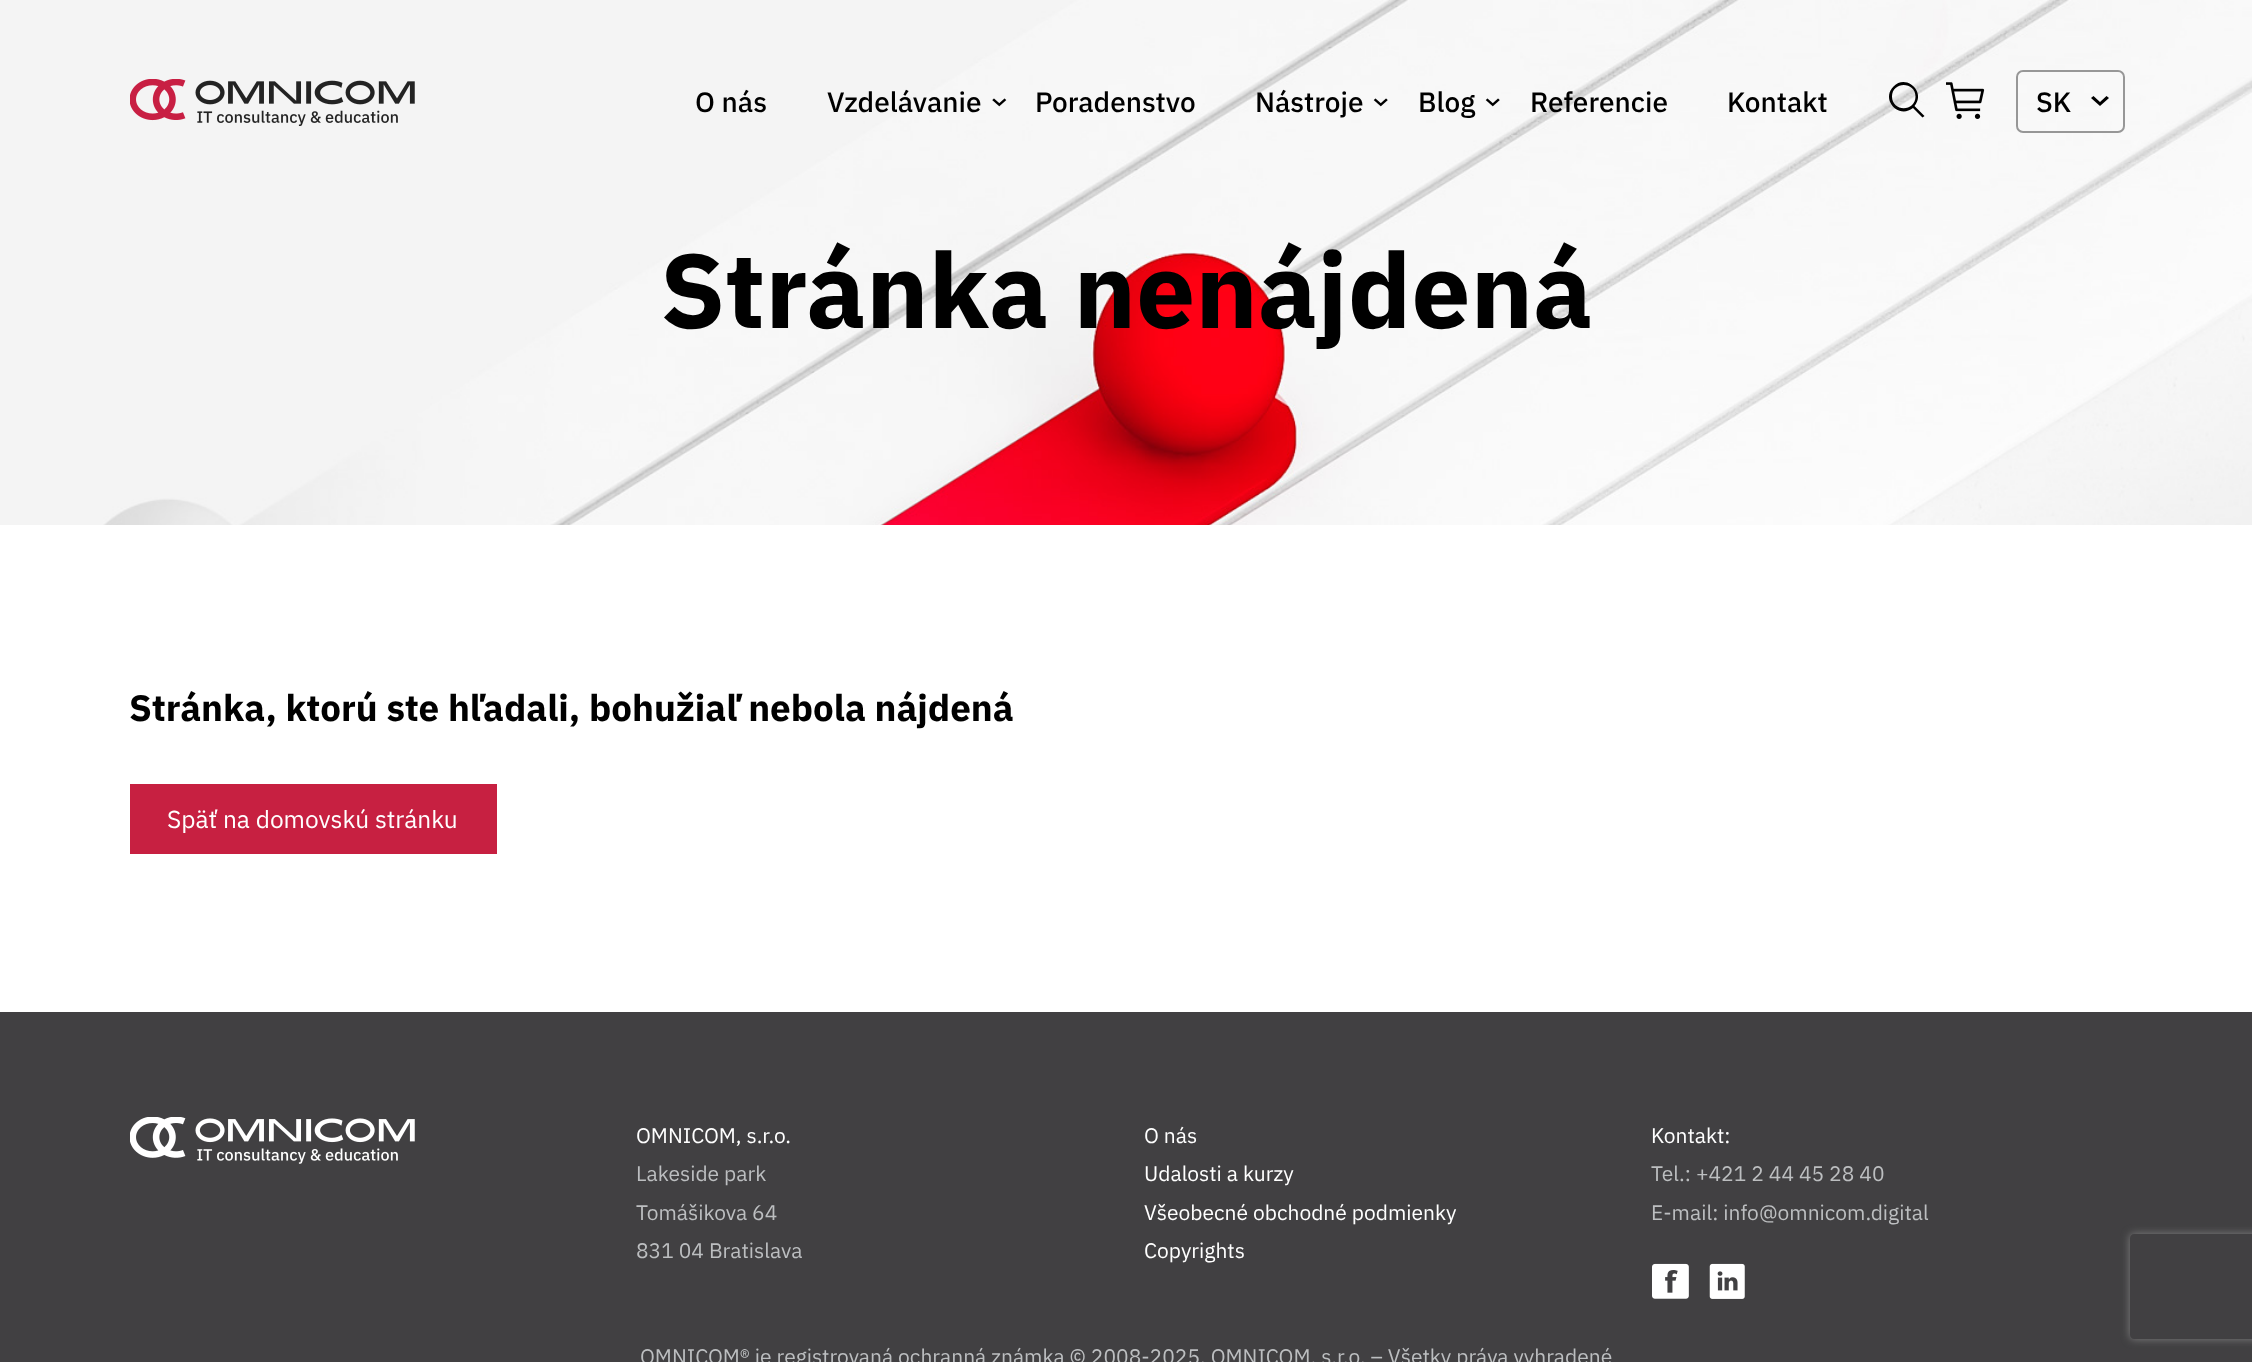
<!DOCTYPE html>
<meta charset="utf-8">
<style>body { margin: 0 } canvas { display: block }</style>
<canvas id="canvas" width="2252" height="1362"></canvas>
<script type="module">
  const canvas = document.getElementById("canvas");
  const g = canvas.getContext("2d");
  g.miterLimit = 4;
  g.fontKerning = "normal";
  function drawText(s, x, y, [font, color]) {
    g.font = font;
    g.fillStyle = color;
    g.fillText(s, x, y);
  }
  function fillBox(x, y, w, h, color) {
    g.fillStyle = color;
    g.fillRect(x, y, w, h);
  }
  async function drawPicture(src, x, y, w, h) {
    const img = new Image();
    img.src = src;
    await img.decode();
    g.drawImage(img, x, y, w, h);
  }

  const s1 = ["500 28px IBM Plex Sans", "#000000"];
  const s2 = ["bold 105px IBM Plex Sans", "#000000"];
  const s3 = ["bold 36.75px IBM Plex Sans", "#000000"];
  const s4 = ["24.5px IBM Plex Sans", "#FFFFFF"];
  const s5 = ["21px IBM Plex Sans", "#FFFFFF"];
  const s6 = ["21px IBM Plex Sans", "#BCBEC0"];

  fillBox(0, 0, 2252, 1362, "#FFFFFF");
  await drawPicture("pic6.png", 0, 0, 2252, 525);
  await drawPicture("pic1.png", 130, 79, 285, 47);
  drawText("O nás", 695, 112, s1);
  drawText("Vzdelávanie", 827, 112, s1);
  await drawPicture("pic2.png", 992, 98, 15, 9);
  drawText("Poradenstvo", 1035, 112, s1);
  drawText("Nástroje", 1255, 112, s1);
  await drawPicture("pic3.png", 1373, 98, 15, 9);
  drawText("Blog", 1418, 112, s1);
  await drawPicture("pic4.png", 1485, 98, 15, 9);
  drawText("Referencie", 1530, 112, s1);
  drawText("Kontakt", 1727, 112, s1);
  g.beginPath();
  g.moveTo(1924.5, 116);
  g.lineTo(1914.5, 106);
  g.bezierCurveTo(1926.5, 92, 1906, 73.5, 1893.5, 86.5);
  g.bezierCurveTo(1880.5, 99.5, 1898.5, 119.5, 1913, 108);
  g.lineTo(1922.5, 117.5);
  g.closePath();
  g.moveTo(1892, 96.5);
  g.bezierCurveTo(1892, 81, 1915.5, 81, 1915.5, 96.5);
  g.bezierCurveTo(1915.5, 112, 1892, 112, 1892, 96.5);
  g.closePath();
  g.fill();
  await drawPicture("pic5.png", 1946, 82, 39, 37);
  g.beginPath();
  g.roundRect(2017, 71, 107, 61, 6);
  g.strokeStyle = "#979797";
  g.lineWidth = 2;
  g.stroke();
  drawText("SK", 2036, 112, s1);
  g.beginPath();
  g.moveTo(2100, 102);
  g.lineTo(2093.5, 96);
  g.lineTo(2091, 98);
  g.lineTo(2100, 106);
  g.lineTo(2109, 98);
  g.lineTo(2106.5, 96);
  g.closePath();
  g.fill();
  drawText("Stránka nenájdená", 660, 328, s2);
  drawText("Stránka, ktorú ste hľadali, bohužiaľ nebola nájdená", 129, 721, s3);
  fillBox(130, 784, 367, 70, "#C72041");
  drawText("Späť na domovskú stránku", 167, 828, s4);
  fillBox(0, 1012, 2252, 350, "#414042");
  await drawPicture("pic7.png", 130, 1117, 285, 47);
  drawText("OMNICOM, s.r.o.", 636, 1143, s5);
  drawText("Lakeside park", 636, 1181, s6);
  drawText("Tomášikova 64", 636, 1220, s6);
  drawText("831 04 Bratislava", 636, 1258, s6);
  drawText("O nás", 1144, 1143, s5);
  drawText("Udalosti a kurzy", 1144, 1181, s5);
  drawText("Všeobecné obchodné podmienky", 1144, 1220, s5);
  drawText("Copyrights", 1144, 1258, s5);
  drawText("Kontakt:", 1651, 1143, s5);
  drawText("Tel.: +421 2 44 45 28 40", 1651, 1181, s6);
  drawText("E-mail: info@omnicom.digital", 1651, 1220, s6);
  await drawPicture("pic8.png", 1652, 1263, 37, 36);
  await drawPicture("pic9.png", 1709, 1263, 36, 36);
  drawText("OMNICOM® je registrovaná ochranná známka © 2008-2025, OMNICOM, s.r.o. – Všetky práva vyhradené", 640, 1364, s6);
  g.save();
  g.beginPath();
  g.moveTo(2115, 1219);
  g.lineTo(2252, 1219);
  g.lineTo(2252, 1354);
  g.lineTo(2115, 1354);
  g.closePath();
  g.moveTo(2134, 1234);
  g.lineTo(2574, 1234);
  g.bezierCurveTo(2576, 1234, 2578, 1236, 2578, 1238);
  g.lineTo(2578, 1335);
  g.bezierCurveTo(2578, 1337, 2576, 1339, 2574, 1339);
  g.lineTo(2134, 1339);
  g.bezierCurveTo(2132, 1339, 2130, 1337, 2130, 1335);
  g.lineTo(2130, 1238);
  g.bezierCurveTo(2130, 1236, 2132, 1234, 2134, 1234);
  g.closePath();
  g.clip("evenodd");
  g.fillStyle = "#808080";
  g.filter = "blur(4.5px)";
  g.beginPath();
  g.roundRect(2130, 1234, 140, 105, 4);
  g.fill();
  g.filter = "none";
  g.restore();
</script>
